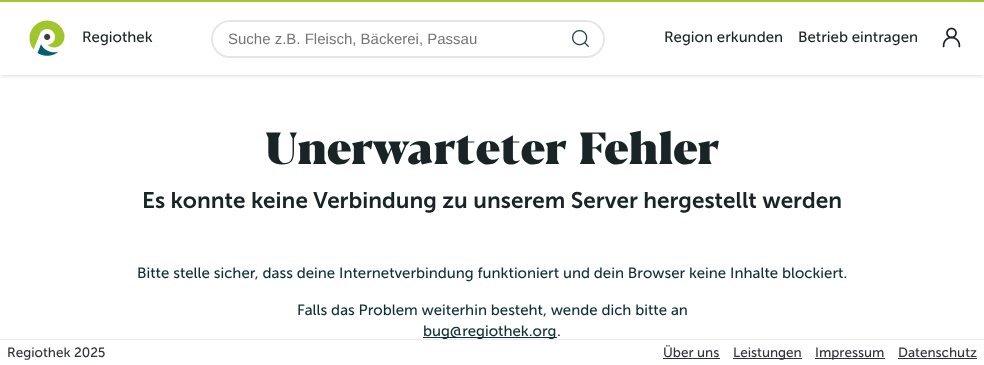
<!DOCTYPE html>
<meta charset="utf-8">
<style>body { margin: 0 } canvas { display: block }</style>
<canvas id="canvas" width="984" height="365"></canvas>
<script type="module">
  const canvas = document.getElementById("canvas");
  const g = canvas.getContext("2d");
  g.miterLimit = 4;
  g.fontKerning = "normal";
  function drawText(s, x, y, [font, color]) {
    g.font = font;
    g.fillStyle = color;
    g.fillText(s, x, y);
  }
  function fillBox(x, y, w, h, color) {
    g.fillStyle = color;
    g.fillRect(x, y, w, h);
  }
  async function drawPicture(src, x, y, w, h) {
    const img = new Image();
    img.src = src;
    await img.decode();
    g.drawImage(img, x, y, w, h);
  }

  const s1 = ["15px Museo Sans", "#192426"];
  const s2 = ["15px Liberation Sans", "#757575"];
  const s3 = ["900 45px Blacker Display", "#192426"];
  const s4 = ["600 22.5px Museo Sans", "#192426"];
  const s5 = ["15px Museo Sans", "#0E3138"];
  const s6 = ["13.5px Museo Sans", "#2E323B"];

  fillBox(0, 0, 984, 365, "#FFFFFF");
  g.save();
  g.beginPath();
  g.rect(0, 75, 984, 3);
  g.clip();
  g.fillStyle = "rgba(0, 0, 0, 0.2)";
  g.filter = "blur(2.5px)";
  g.beginPath();
  g.rect(0, 0, 984, 75);
  g.fill();
  g.filter = "none";
  g.restore();
  fillBox(0, 0, 984, 2, "#A1C52C");
  await drawPicture("pic1.png", 29, 20, 36, 36);
  drawText("Regiothek", 82, 42, s1);
  g.beginPath();
  g.roundRect(212, 21, 392, 36, 18);
  g.strokeStyle = "#E6E6E6";
  g.lineWidth = 2;
  g.stroke();
  g.save();
  g.beginPath();
  g.roundRect(213, 22, 390, 34, 17);
  g.clip();
  fillBox(221, 23, 344, 31, "#FFFFFF");
  g.restore();
  drawText("Suche z.B. Fleisch, Bäckerei, Passau", 228, 44, s2);
  await drawPicture("pic2.png", 572, 30, 17, 17);
  drawText("Region erkunden", 664, 42, s1);
  drawText("Betrieb eintragen", 798, 42, s1);
  await drawPicture("pic3.png", 942, 27, 19, 21);
  drawText("Unerwarteter Fehler", 265, 164, s3);
  drawText("Es konnte keine Verbindung zu unserem Server hergestellt werden", 142, 208, s4);
  drawText("Bitte stelle sicher, dass deine Internetverbindung funktioniert und dein Browser keine Inhalte blockiert.", 137, 278, s5);
  drawText("Falls das Problem weiterhin besteht, wende dich bitte an", 297, 315, s5);
  fillBox(423, 337, 134, 1, "#0E3138");
  g.save();
  g.beginPath();
  g.rect(0, 75, 984, 264);
  g.clip();
  drawText("bug@regiothek.org", 423, 336, s5);
  g.restore();
  drawText(".", 557, 336, s5);
  fillBox(0, 339, 984, 1, "#EAEAEA");
  drawText("Regiothek 2025", 7, 357, s6);
  drawText("Über uns", 663, 357, s6);
  fillBox(663, 358, 57, 1, "#2E323B");
  fillBox(733, 358, 69, 1, "#2E323B");
  drawText("Leistungen", 733, 357, s6);
  fillBox(815, 358, 70, 1, "#2E323B");
  drawText("Impressum", 815, 357, s6);
  drawText("Datenschutz", 898, 357, s6);
  fillBox(898, 358, 79, 1, "#2E323B");
</script>
